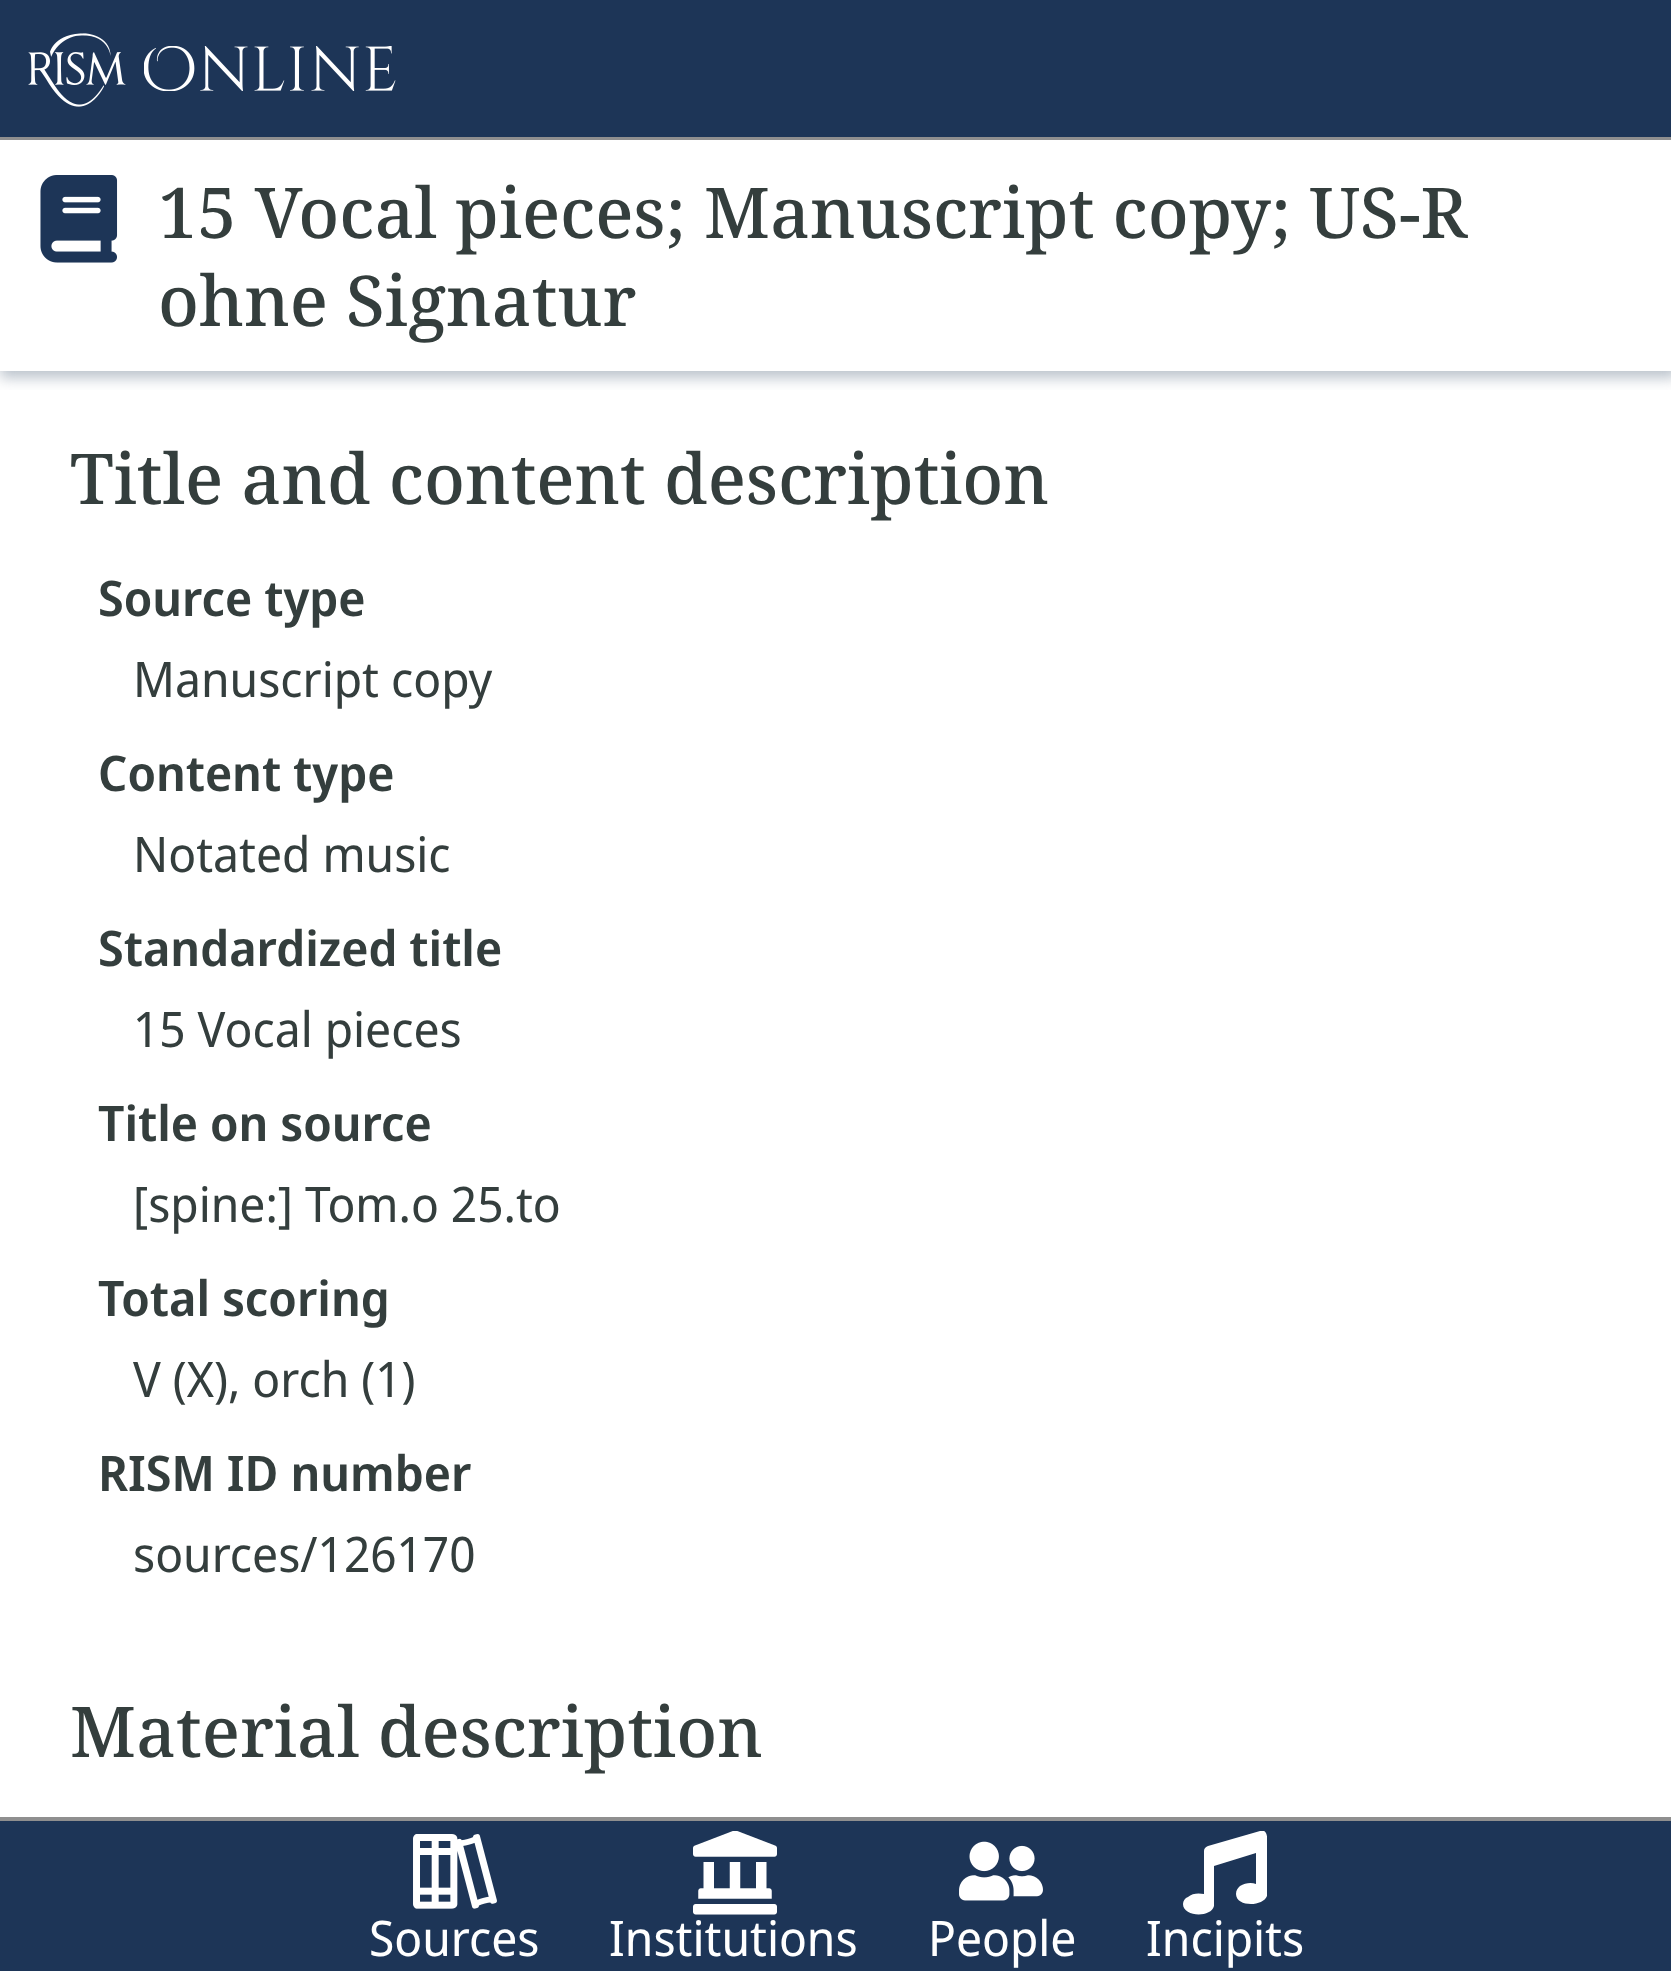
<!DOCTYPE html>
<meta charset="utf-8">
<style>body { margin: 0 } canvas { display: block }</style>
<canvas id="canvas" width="1671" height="1971"></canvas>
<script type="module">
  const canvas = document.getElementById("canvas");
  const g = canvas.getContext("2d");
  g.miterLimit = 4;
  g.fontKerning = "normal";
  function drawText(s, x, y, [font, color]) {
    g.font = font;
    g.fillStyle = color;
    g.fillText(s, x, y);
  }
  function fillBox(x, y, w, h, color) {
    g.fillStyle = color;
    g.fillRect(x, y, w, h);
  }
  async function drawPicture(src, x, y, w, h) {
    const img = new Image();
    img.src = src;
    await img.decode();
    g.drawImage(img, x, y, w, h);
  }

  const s1 = ["500 70px Noto Serif", "#343E3D"];
  const s2 = ["600 49px Noto Sans Display", "#343E3D"];
  const s3 = ["49px Noto Sans Display", "#343E3D"];
  const s4 = ["49px Noto Sans Display", "#FFFFFF"];

  fillBox(0, 0, 1671, 1971, "#1D3557");
  fillBox(0, 137, 1671, 3, "#8F8F8F");
  await drawPicture("pic1.png", 28, 33, 98, 74);
  await drawPicture("pic2.png", 144, 46, 252, 45);
  fillBox(0, 140, 1671, 1677, "#FFFFFF");
  g.save();
  g.beginPath();
  g.rect(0, 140, 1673, 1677);
  g.clip();
  g.beginPath();
  g.rect(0, 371, 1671, 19);
  g.clip();
  g.fillStyle = "rgba(119, 136, 153, 0.5)";
  g.filter = "blur(7px)";
  g.beginPath();
  g.rect(0, 144, 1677, 234);
  g.fill();
  g.filter = "none";
  g.restore();
  await drawPicture("pic3.png", 40, 175, 78, 88);
  drawText("15 Vocal pieces; Manuscript copy; US-R", 158, 238, s1);
  drawText("ohne Signatur", 158, 326, s1);
  drawText("Title and content description", 70, 504, s1);
  drawText("Source type", 98, 616, s2);
  drawText("Manuscript copy", 133, 697, s3);
  drawText("Content type", 98, 791, s2);
  drawText("Notated music", 133, 872, s3);
  drawText("Standardized title", 98, 966, s2);
  drawText("15 Vocal pieces", 133, 1047, s3);
  drawText("Title on source", 98, 1141, s2);
  drawText("[spine:] Tom.o 25.to", 133, 1222, s3);
  drawText("Total scoring", 98, 1316, s2);
  drawText("V (X), orch (1)", 133, 1397, s3);
  drawText("RISM ID number", 98, 1491, s2);
  drawText("sources/126170", 133, 1572, s3);
  drawText("Material description", 70, 1757, s1);
  fillBox(0, 1817, 1671, 4, "#8F8F8F");
  await drawPicture("pic4.png", 413, 1834, 84, 75);
  drawText("Sources", 369, 1956, s4);
  await drawPicture("pic5.png", 693, 1831, 84, 84);
  drawText("Institutions", 609, 1956, s4);
  await drawPicture("pic6.png", 959, 1841, 84, 60);
  drawText("People", 928, 1956, s4);
  g.save();
  g.beginPath();
  g.rect(1183, 1831, 84, 84);
  g.clip();
  g.beginPath();
  g.moveTo(1260, 1831);
  g.lineTo(1208, 1846);
  g.bezierCurveTo(1205, 1847, 1204, 1849, 1204, 1851);
  g.lineTo(1204, 1894);
  g.bezierCurveTo(1199, 1893, 1192, 1893, 1188, 1897);
  g.bezierCurveTo(1185, 1898, 1183, 1901, 1183, 1904);
  g.bezierCurveTo(1183, 1917, 1211, 1918, 1214, 1906);
  g.lineTo(1214, 1866);
  g.lineTo(1256, 1853);
  g.lineTo(1256, 1884);
  g.bezierCurveTo(1251, 1882, 1245, 1883, 1240, 1886);
  g.bezierCurveTo(1238, 1888, 1236, 1890, 1236, 1894);
  g.bezierCurveTo(1236, 1907, 1263, 1907, 1267, 1896);
  g.lineTo(1267, 1845);
  g.bezierCurveTo(1267, 1842, 1269, 1828, 1260, 1831);
  g.closePath();
  g.fill();
  g.restore();
  drawText("Incipits", 1146, 1956, s4);
</script>
